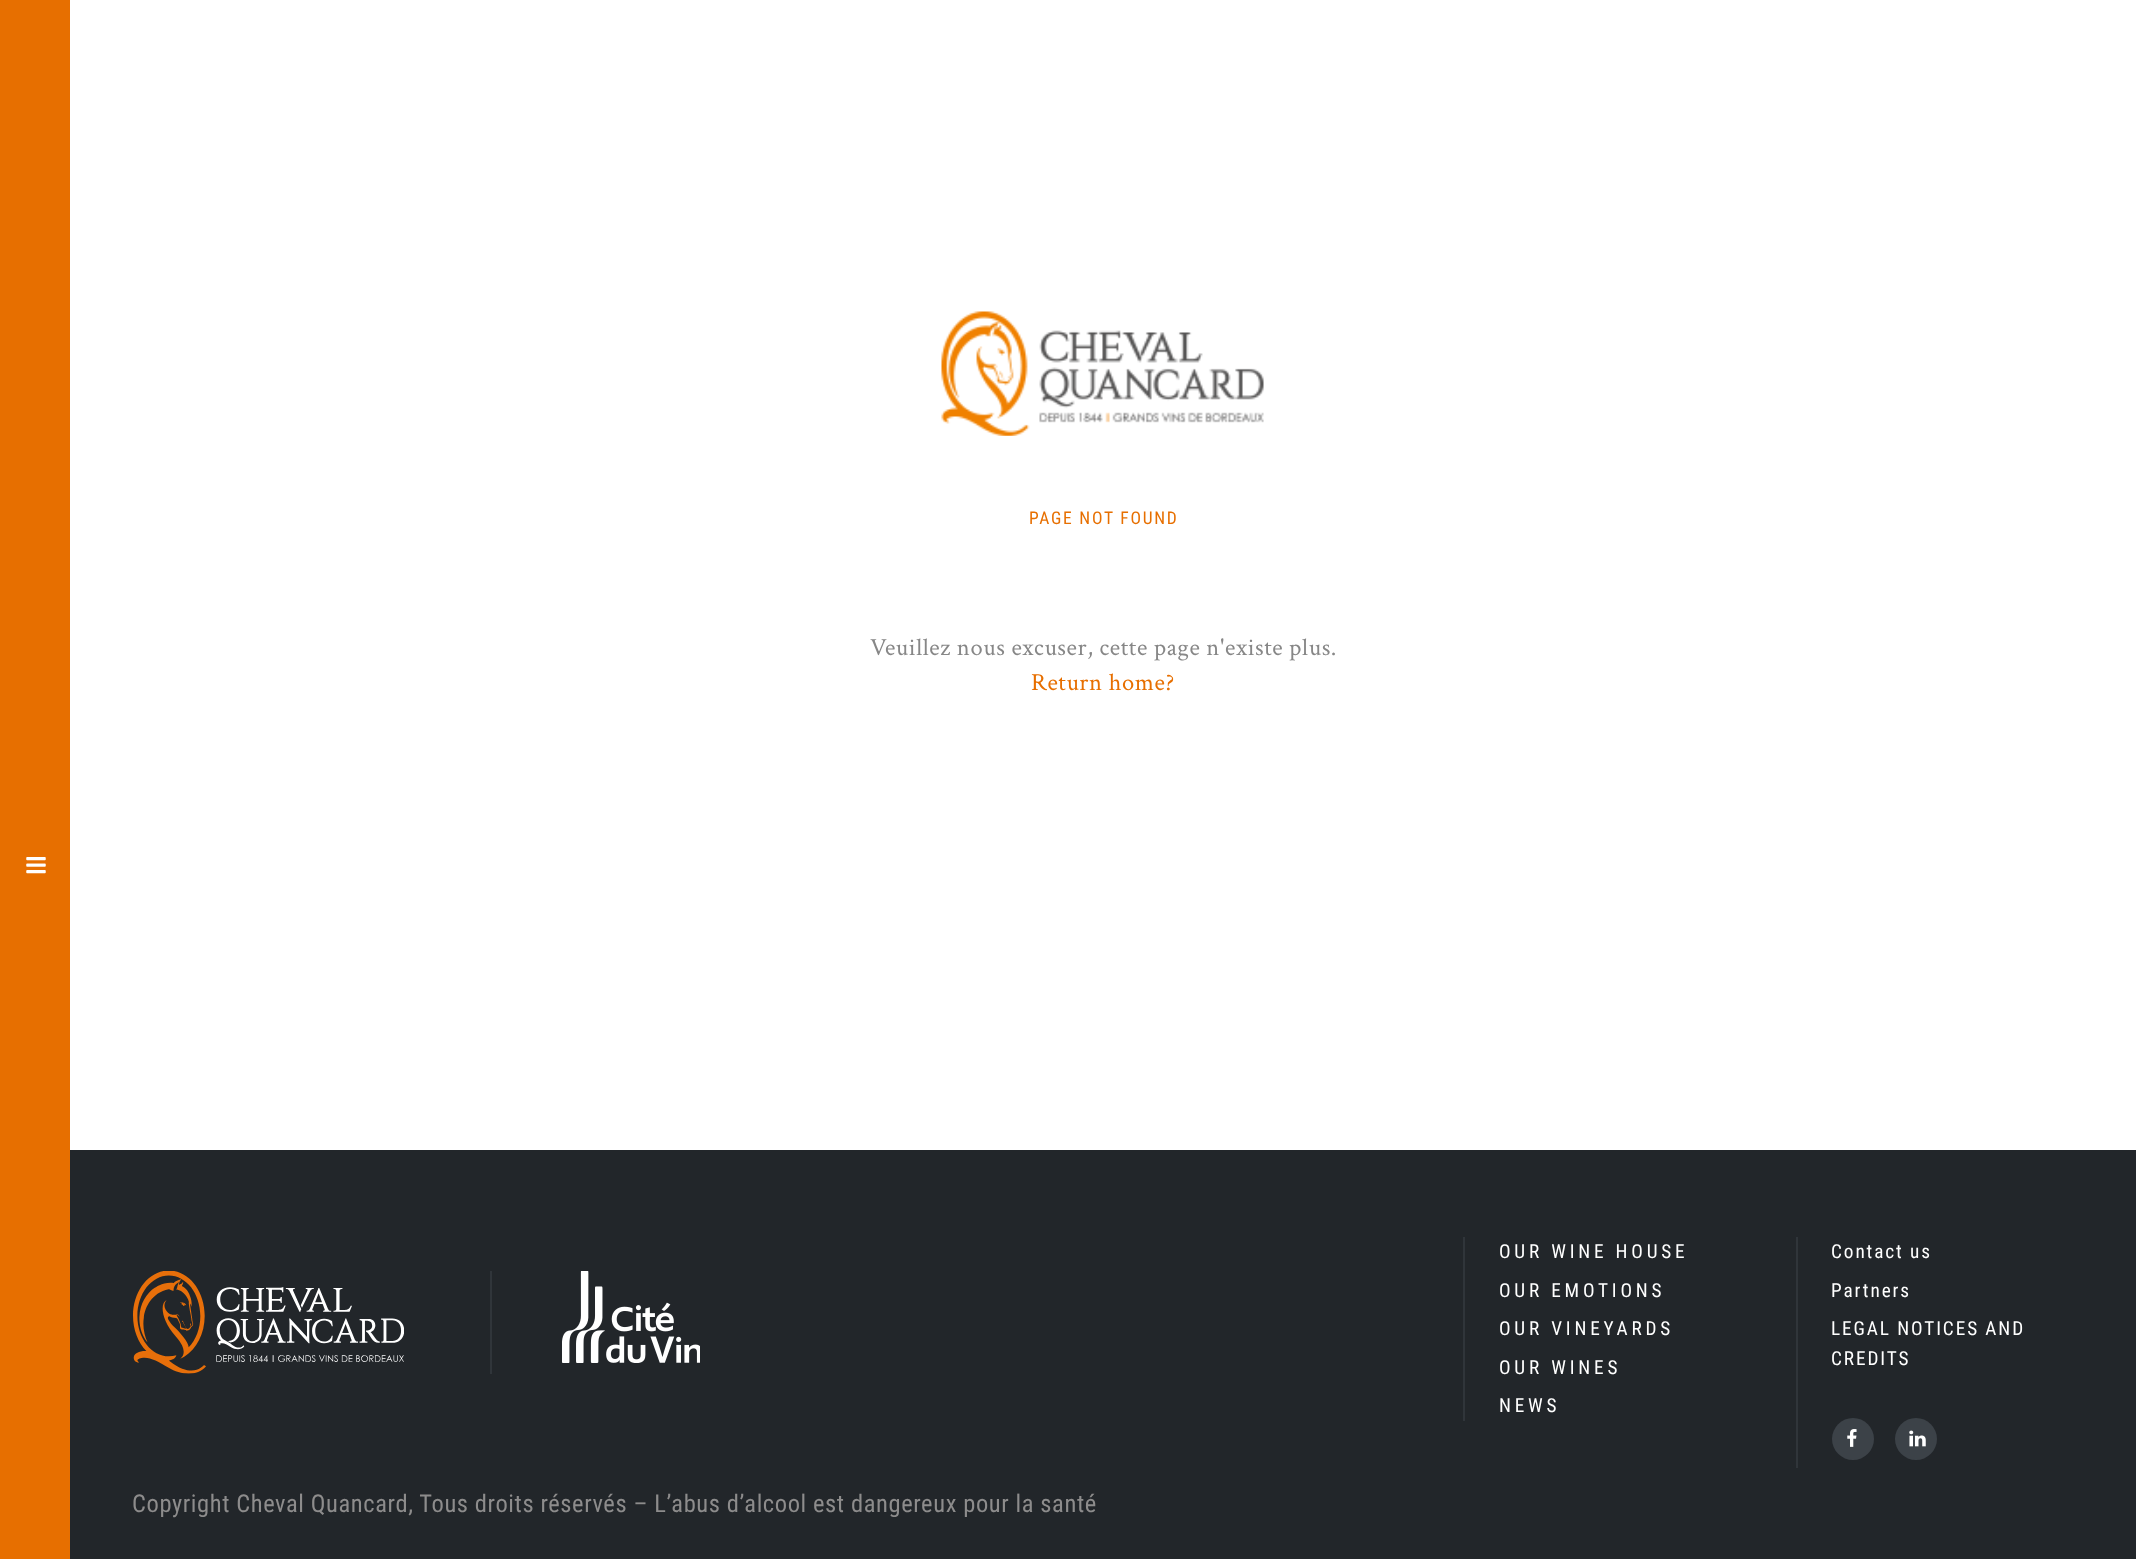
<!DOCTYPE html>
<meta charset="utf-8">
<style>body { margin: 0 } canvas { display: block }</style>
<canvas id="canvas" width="2136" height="1559"></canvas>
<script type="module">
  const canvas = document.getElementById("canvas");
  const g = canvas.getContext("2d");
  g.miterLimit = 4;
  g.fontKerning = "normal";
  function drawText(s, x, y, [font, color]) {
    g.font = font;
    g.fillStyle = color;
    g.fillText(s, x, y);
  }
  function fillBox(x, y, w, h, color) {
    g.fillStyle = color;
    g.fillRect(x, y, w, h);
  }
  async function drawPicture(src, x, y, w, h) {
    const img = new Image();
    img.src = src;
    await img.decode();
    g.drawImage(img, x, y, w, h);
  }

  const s1 = ["17.5px Roboto Condensed", "#E76F00"];
  const s2 = ["24.5px Crimson Text", "#878787"];
  const s3 = ["24.5px Crimson Text", "#E76F00"];
  const s4 = ["19.25px Roboto Condensed", "#FFFFFF"];
  const s5 = ["24.5px Roboto Condensed", "#8D8C8C"];

  fillBox(0, 0, 2136, 1559, "#FFFFFF");
  fillBox(0, 0, 70, 1559, "#E76F00");
  await drawPicture("pic1.png", 26, 857, 20, 17);
  await drawPicture("pic2.png", 941, 311, 323, 125);
  g.letterSpacing = "1.75px";
  drawText("PAGE NOT FOUND", 1029, 524, s1);
  g.letterSpacing = "0.6px";
  drawText("Veuillez nous excuser, cette page n'existe plus.", 870, 655, s2);
  drawText("Return home?", 1031, 690, s3);
  fillBox(70, 1150, 2066, 409, "#22262A");
  fillBox(490, 1271, 2, 103, "#30353A");
  await drawPicture("pic3.png", 133, 1271, 271, 103);
  await drawPicture("pic4.png", 562, 1271, 138, 92);
  fillBox(1463, 1237, 2, 184, "#30353A");
  g.letterSpacing = "3.8px";
  drawText("OUR WINE HOUSE", 1499, 1258, s4);
  drawText("OUR EMOTIONS", 1499, 1297, s4);
  drawText("OUR VINEYARDS", 1499, 1335, s4);
  drawText("OUR WINES", 1499, 1374, s4);
  drawText("NEWS", 1499, 1412, s4);
  fillBox(1796, 1237, 2, 231, "#30353A");
  g.letterSpacing = "1.9px";
  drawText("Contact us", 1831, 1258, s4);
  drawText("Partners", 1831, 1297, s4);
  drawText("LEGAL NOTICES AND", 1831, 1335, s4);
  drawText("CREDITS", 1831, 1365, s4);
  g.fillStyle = "#3C4248";
  g.beginPath();
  g.arc(1853, 1439, 21, 0, Math.PI * 2);
  g.fill();
  await drawPicture("pic5.png", 1847, 1429, 10, 18);
  g.beginPath();
  g.arc(1916, 1439, 21, 0, Math.PI * 2);
  g.fill();
  await drawPicture("pic6.png", 1909, 1430, 17, 17);
  g.letterSpacing = "0.6px";
  drawText("Copyright Cheval Quancard, Tous droits réservés – L’abus d’alcool est dangereux pour la santé", 132, 1512, s5);
</script>
